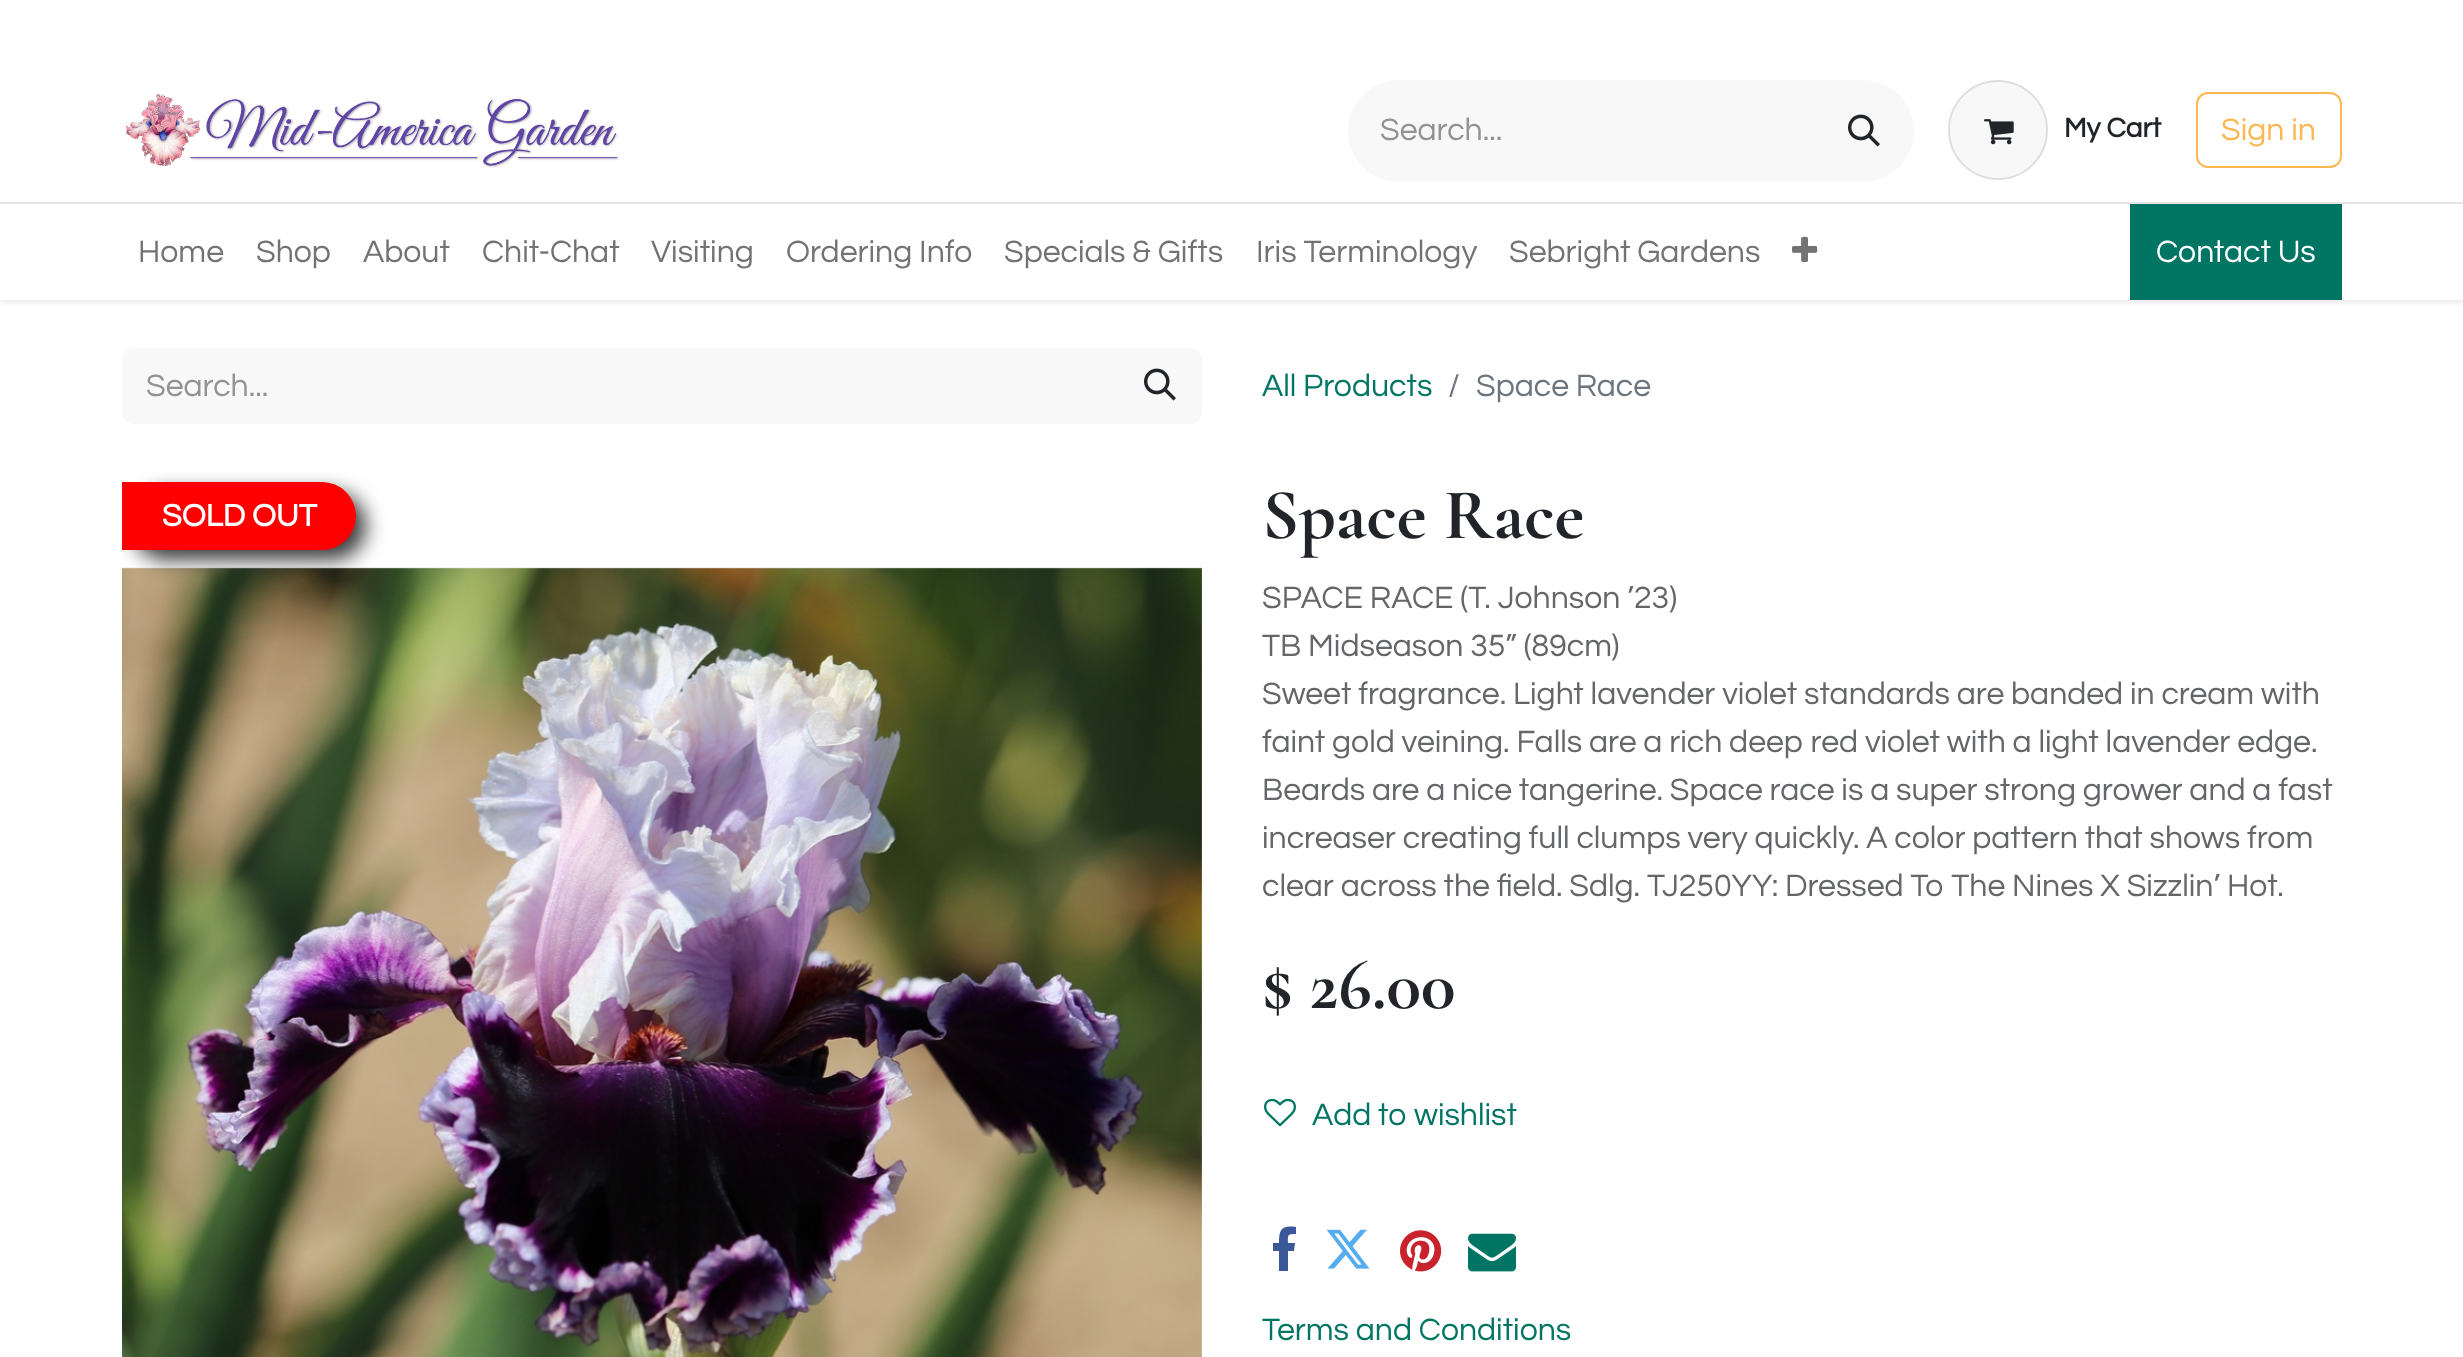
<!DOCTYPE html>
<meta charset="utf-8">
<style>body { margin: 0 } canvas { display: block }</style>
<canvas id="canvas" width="2463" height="1357"></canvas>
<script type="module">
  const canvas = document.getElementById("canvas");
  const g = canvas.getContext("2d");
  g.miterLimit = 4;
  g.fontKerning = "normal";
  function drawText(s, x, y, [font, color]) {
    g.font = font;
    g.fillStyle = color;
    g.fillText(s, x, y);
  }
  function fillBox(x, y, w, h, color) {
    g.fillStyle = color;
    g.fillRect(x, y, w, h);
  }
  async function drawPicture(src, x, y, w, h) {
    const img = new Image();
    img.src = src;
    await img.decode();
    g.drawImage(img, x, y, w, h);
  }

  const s1 = ["32px Questrial", "#909294"];
  const s2 = ["bold 28px Questrial", "#212529"];
  const s3 = ["32px Questrial", "#FCB752"];
  const s4 = ["32px Questrial", "#737373"];
  const s5 = ["32px Questrial", "#FFFFFF"];
  const s6 = ["32px Questrial", "#007564"];
  const s7 = ["32px Questrial", "#6C757D"];
  const s8 = ["bold 32px Questrial", "#FFFFFF"];
  const s9 = ["bold 72px Cormorant Garamond", "#212529"];
  const s10 = ["32px Questrial", "#646669"];

  fillBox(0, 0, 2463, 1357, "#FFFFFF");
  g.save();
  g.beginPath();
  g.rect(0, 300, 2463, 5);
  g.clip();
  g.fillStyle = "rgba(0, 0, 0, 0.1)";
  g.filter = "blur(3px)";
  g.beginPath();
  g.rect(0, 2, 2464, 300);
  g.fill();
  g.filter = "none";
  g.restore();
  await drawPicture("pic1.png", 125, 94, 495, 74);
  g.fillStyle = "#F8F8F8";
  g.beginPath();
  g.roundRect(1348, 80, 468, 102, [51, 0, 0, 51]);
  g.fill();
  drawText("Search...", 1380, 140, s1);
  g.fillStyle = "#F8F8F8";
  g.beginPath();
  g.roundRect(1814, 80, 100, 102, [0, 51, 51, 0]);
  g.fill();
  await drawPicture("pic2.png", 1848, 114, 32, 33);
  g.beginPath();
  g.arc(1998, 130, 50, 0, Math.PI * 2);
  g.fill();
  g.beginPath();
  g.arc(1998, 130, 49, 0, Math.PI * 2);
  g.strokeStyle = "rgba(0, 0, 0, 0.1)";
  g.lineWidth = 2;
  g.stroke();
  await drawPicture("pic3.png", 1984, 119, 30, 26);
  drawText("My Cart", 2064, 137, s2);
  g.beginPath();
  g.roundRect(2197, 93, 144, 74, 11);
  g.strokeStyle = "#FCB752";
  g.stroke();
  drawText("Sign in", 2221, 140, s3);
  fillBox(0, 202, 2463, 2, "#E6E6E6");
  drawText("Home", 138, 262, s4);
  drawText("Shop", 256, 262, s4);
  drawText("About", 363, 262, s4);
  drawText("Chit-Chat", 482, 262, s4);
  drawText("Visiting", 651, 262, s4);
  drawText("Ordering Info", 786, 262, s4);
  drawText("Specials & Gifts", 1004, 262, s4);
  drawText("Iris Terminology", 1256, 262, s4);
  drawText("Sebright Gardens", 1509, 262, s4);
  await drawPicture("pic4.png", 1792, 236, 26, 26);
  fillBox(2130, 204, 212, 96, "#007564");
  drawText("Contact Us", 2156, 262, s5);
  g.fillStyle = "#F8F8F8";
  g.beginPath();
  g.roundRect(122, 348, 998, 76, [12, 0, 0, 12]);
  g.fill();
  drawText("Search...", 146, 396, s1);
  g.fillStyle = "#F8F8F8";
  g.beginPath();
  g.roundRect(1118, 348, 84, 76, [0, 12, 12, 0]);
  g.fill();
  await drawPicture("pic2.png", 1144, 368, 32, 33);
  drawText("All Products", 1262, 396, s6);
  drawText("/", 1448, 396, s7);
  drawText("Space Race", 1476, 396, s7);
  await drawPicture("pic5.png", 122, 567, 1080, 790);
  g.save();
  g.beginPath();
  g.rect(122, 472, 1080, 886);
  g.clip();
  g.fillStyle = "#3A3A3A";
  g.filter = "blur(10px)";
  g.beginPath();
  g.roundRect(132, 492, 234, 68, 34);
  g.fill();
  g.filter = "none";
  g.restore();
  g.fillStyle = "#FF0000";
  g.beginPath();
  g.roundRect(122, 482, 234, 68, [0, 34, 34, 0]);
  g.fill();
  drawText("SOLD OUT", 162, 526, s8);
  drawText("Space Race", 1262, 538, s9);
  drawText("SPACE RACE (T. Johnson ’23)", 1262, 608, s10);
  drawText("TB Midseason 35” (89cm)", 1262, 656, s10);
  drawText("Sweet fragrance. Light lavender violet standards are banded in cream with", 1262, 704, s10);
  drawText("faint gold veining. Falls are a rich deep red violet with a light lavender edge.", 1262, 752, s10);
  drawText("Beards are a nice tangerine. Space race is a super strong grower and a fast", 1262, 800, s10);
  drawText("increaser creating full clumps very quickly. A color pattern that shows from", 1262, 848, s10);
  drawText("clear across the field. Sdlg. TJ250YY: Dressed To The Nines X Sizzlin’ Hot.", 1262, 896, s10);
  drawText("$ 26.00", 1262, 1008, s9);
  await drawPicture("pic6.png", 1264, 1098, 32, 29);
  drawText("Add to wishlist", 1312, 1125, s6);
  g.fillStyle = "#3B5999";
  g.beginPath();
  g.moveTo(1296, 1227);
  g.lineTo(1296, 1234);
  g.bezierCurveTo(1287, 1234, 1288, 1235, 1288, 1243);
  g.lineTo(1295, 1243);
  g.lineTo(1294, 1251);
  g.lineTo(1288, 1251);
  g.lineTo(1288, 1271);
  g.lineTo(1279, 1271);
  g.lineTo(1279, 1251);
  g.lineTo(1273, 1251);
  g.lineTo(1273, 1243);
  g.lineTo(1279, 1243);
  g.bezierCurveTo(1279, 1230, 1281, 1225, 1296, 1227);
  g.closePath();
  g.fill();
  await drawPicture("pic7.png", 1326, 1229, 44, 40);
  await drawPicture("pic8.png", 1400, 1230, 42, 42);
  await drawPicture("pic9.png", 1468, 1233, 48, 39);
  drawText("Terms and Conditions", 1262, 1340, s6);
</script>
